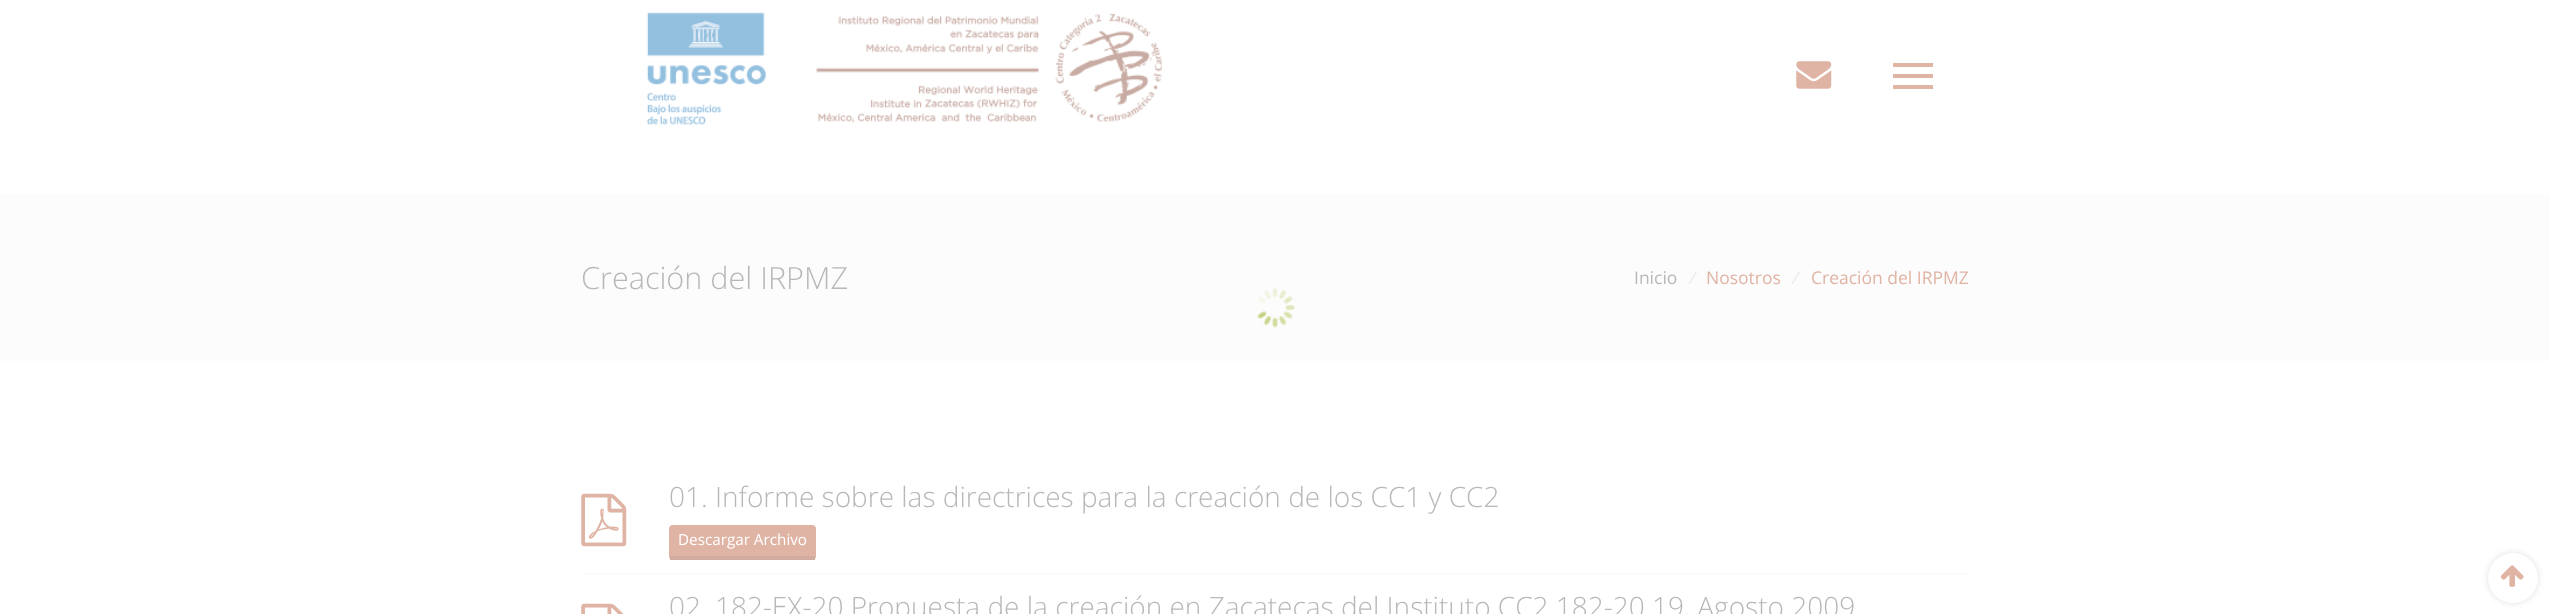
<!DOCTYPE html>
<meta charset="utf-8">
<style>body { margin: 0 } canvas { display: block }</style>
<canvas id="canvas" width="2549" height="614"></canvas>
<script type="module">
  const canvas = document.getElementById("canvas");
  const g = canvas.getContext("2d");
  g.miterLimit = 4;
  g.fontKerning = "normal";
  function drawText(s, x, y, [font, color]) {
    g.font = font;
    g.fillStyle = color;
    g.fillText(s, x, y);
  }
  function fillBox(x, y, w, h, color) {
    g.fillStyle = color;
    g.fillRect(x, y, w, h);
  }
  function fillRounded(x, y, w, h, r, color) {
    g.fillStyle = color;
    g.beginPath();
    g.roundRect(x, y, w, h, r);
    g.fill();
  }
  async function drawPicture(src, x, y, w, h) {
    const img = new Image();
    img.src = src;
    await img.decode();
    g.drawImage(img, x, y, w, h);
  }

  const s1 = ["300 30.6px Open Sans", "#B8B8B8"];
  const s2 = ["17.5px Open Sans", "#B8B8B8"];
  const s3 = ["italic 17.5px Open Sans", "#EAEAEA"];
  const s4 = ["17.5px Open Sans", "#E0B4A4"];
  const s5 = ["300 28px Open Sans", "#B8B8B8"];
  const s6 = ["15.25px Open Sans", "#FFFFFF"];

  fillBox(0, 0, 2549, 614, "#FFFFFF");
  await drawPicture("pic1.png", 646, 12, 517, 113);
  await drawPicture("pic2.png", 1796, 61, 36, 28);
  fillBox(1893, 63, 40, 4, "#E0B4A4");
  fillBox(1893, 74, 40, 4, "#E0B4A4");
  fillBox(1893, 85, 40, 4, "#E0B4A4");
  fillBox(0, 194, 2549, 167, "#FCFCFC");
  drawText("Creación del IRPMZ", 581, 289, s1);
  drawText("Inicio", 1634, 284, s2);
  drawText("/", 1688, 284, s3);
  drawText("Nosotros", 1706, 284, s4);
  drawText("/", 1791, 284, s3);
  drawText("Creación del IRPMZ", 1811, 284, s4);
  fillBox(581, 573, 1388, 1, "#F9F9F9");
  await drawPicture("pic3.png", 581, 493, 46, 54);
  drawText("01. Informe sobre las directrices para la creación de los CC1 y CC2", 669, 507, s5);
  fillRounded(669, 525, 147, 35, 4, "#E0B4A4");
  fillBox(670, 556, 145, 4, "#D2AC9E");
  drawText("Descargar Archivo", 678, 545, s6);
  await drawPicture("pic4.png", 581, 603, 43, 11);
  drawText("02. 182-EX-20 Propuesta de la creación en Zacatecas del Instituto CC2 182-20 19, Agosto 2009", 669, 617, s5);
  g.fillStyle = "rgba(148, 148, 148, 0.3)";
  g.filter = "blur(3px)";
  g.beginPath();
  g.roundRect(2488, 553, 50, 50, 25);
  g.fill();
  g.filter = "none";
  g.fillStyle = "#FFFFFF";
  g.beginPath();
  g.arc(2513, 578, 25, 0, Math.PI * 2);
  g.fill();
  await drawPicture("pic5.png", 2500, 565, 24, 22);
  await drawPicture("pic6.png", 1257, 287, 38, 41);
</script>
